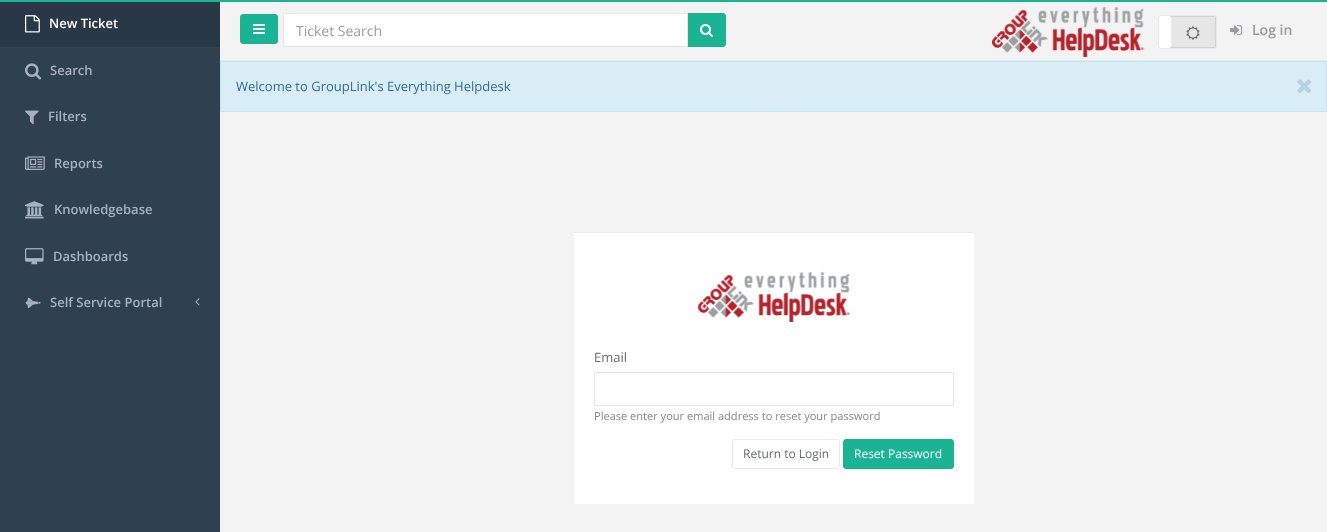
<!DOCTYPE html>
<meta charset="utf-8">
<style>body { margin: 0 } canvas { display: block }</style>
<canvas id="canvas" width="1327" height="532"></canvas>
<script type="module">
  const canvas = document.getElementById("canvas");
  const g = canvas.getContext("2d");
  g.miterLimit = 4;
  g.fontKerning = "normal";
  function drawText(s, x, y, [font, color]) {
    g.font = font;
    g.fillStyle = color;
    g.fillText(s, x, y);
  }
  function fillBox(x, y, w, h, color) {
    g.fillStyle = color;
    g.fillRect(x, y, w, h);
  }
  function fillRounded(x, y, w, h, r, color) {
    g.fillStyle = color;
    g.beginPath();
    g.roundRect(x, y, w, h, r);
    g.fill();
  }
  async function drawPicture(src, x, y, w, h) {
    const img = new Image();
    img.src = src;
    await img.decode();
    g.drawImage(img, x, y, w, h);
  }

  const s1 = ["600 13px Open Sans", "#FFFFFF"];
  const s2 = ["600 13px Open Sans", "#A7B1C2"];
  const s3 = ["14px Open Sans", "#999C9E"];
  const s4 = ["600 14px Open Sans", "#999C9E"];
  const s5 = ["13px Open Sans", "#31708F"];
  const s6 = ["13px Open Sans", "#676A6C"];
  const s7 = ["11.05px Open Sans", "#888888"];
  const s8 = ["12px Open Sans", "#676A6C"];
  const s9 = ["12px Open Sans", "#FFFFFF"];

  fillBox(0, 0, 1327, 532, "#2F4050");
  fillBox(0, 0, 1327, 2, "#1AB394");
  fillBox(0, 2, 220, 45, "#293846");
  await drawPicture("pic1.png", 25, 15, 15, 18);
  drawText("New Ticket", 49, 28, s1);
  await drawPicture("pic2.png", 25, 63, 17, 17);
  drawText("Search", 50, 75, s2);
  await drawPicture("pic3.png", 25, 110, 14, 15);
  drawText("Filters", 48, 121, s2);
  await drawPicture("pic4.png", 25, 156, 20, 14);
  drawText("Reports", 54, 168, s2);
  await drawPicture("pic5.png", 25, 201, 19, 18);
  drawText("Knowledgebase", 54, 214, s2);
  await drawPicture("pic6.png", 25, 248, 19, 17);
  drawText("Dashboards", 53, 261, s2);
  await drawPicture("pic7.png", 25, 297, 16, 11);
  drawText("Self Service Portal", 50, 307, s2);
  await drawPicture("pic8.png", 195, 298, 5, 8);
  fillBox(220, 2, 1107, 530, "#F3F3F4");
  fillBox(220, 60, 1107, 1, "#E7EAEC");
  g.fillStyle = "#1AB394";
  g.beginPath();
  g.roundRect(240.5, 14.5, 37, 29, 2.5);
  g.fill();
  g.strokeStyle = "#1AB394";
  g.stroke();
  await drawPicture("pic9.png", 253, 24, 12, 10);
  g.beginPath();
  g.roundRect(687.5, 13.5, 38, 33, [0, 2.5, 2.5, 0]);
  g.fill();
  g.stroke();
  g.fillStyle = "#FFFFFF";
  g.beginPath();
  g.roundRect(283.5, 13.5, 404, 33, [0.5, 0, 0, 0.5]);
  g.fill();
  g.strokeStyle = "#E5E6E7";
  g.stroke();
  drawText("Ticket Search", 296, 36, s3);
  await drawPicture("pic10.png", 700, 24, 13, 13);
  await drawPicture("pic11.png", 992, 6, 153, 51);
  g.beginPath();
  g.roundRect(1158.5, 15.5, 58, 33, 2.5);
  g.strokeStyle = "#E7EAEC";
  g.stroke();
  fillRounded(1159, 16, 57, 32, 2, "#E6E6E6");
  g.fillStyle = "#D2D2D2";
  g.beginPath();
  g.moveTo(1161, 16);
  g.bezierCurveTo(1160, 16, 1159, 17, 1159, 18);
  g.lineTo(1159, 46);
  g.bezierCurveTo(1159, 47, 1160, 48, 1161, 48);
  g.lineTo(1214, 48);
  g.bezierCurveTo(1215, 48, 1216, 47, 1216, 46);
  g.lineTo(1216, 18);
  g.bezierCurveTo(1216, 17, 1215, 16, 1214, 16);
  g.closePath();
  g.moveTo(1160, 17);
  g.lineTo(1160, 47);
  g.lineTo(1215, 47);
  g.lineTo(1215, 17);
  g.closePath();
  g.fill("evenodd");
  await drawPicture("pic12.png", 1186, 26, 14, 14);
  g.fillStyle = "#FFFFFF";
  g.beginPath();
  g.moveTo(1161, 16);
  g.bezierCurveTo(1160, 16, 1159, 17, 1159, 18);
  g.lineTo(1159, 46);
  g.bezierCurveTo(1159, 47, 1160, 48, 1161, 48);
  g.lineTo(1169, 48);
  g.bezierCurveTo(1170, 48, 1171, 46.5, 1171, 45);
  g.lineTo(1171, 19);
  g.bezierCurveTo(1171, 17.5, 1170, 16, 1169, 16);
  g.closePath();
  g.fill();
  fillBox(1171, 18, 1, 29, "#E7EAEC");
  await drawPicture("pic13.png", 1230, 25, 12, 10);
  drawText("Log in", 1252, 35, s4);
  g.fillStyle = "#D9EDF7";
  g.beginPath();
  g.rect(220.5, 61.5, 1106, 50);
  g.fill();
  g.strokeStyle = "#BCE8F1";
  g.stroke();
  drawText("Welcome to GroupLink's Everything Helpdesk", 236, 91, s5);
  await drawPicture("pic14.png", 1297, 79, 15, 15);
  fillBox(574, 233, 400, 271, "#FFFFFF");
  fillBox(574, 232, 400, 1, "#E7EAEC");
  await drawPicture("pic15.png", 697, 271, 153, 51);
  drawText("Email", 594, 362, s6);
  g.beginPath();
  g.roundRect(594.5, 372.5, 359, 33, 0.5);
  g.strokeStyle = "#E5E6E7";
  g.stroke();
  drawText("Please enter your email address to reset your password", 594, 420, s7);
  g.beginPath();
  g.roundRect(732.5, 439.5, 107, 29, 2.5);
  g.strokeStyle = "#E7EAEC";
  g.stroke();
  drawText("Return to Login", 743, 458, s8);
  g.fillStyle = "#1AB394";
  g.beginPath();
  g.roundRect(843.5, 439.5, 110, 29, 2.5);
  g.fill();
  g.strokeStyle = "#1AB394";
  g.stroke();
  drawText("Reset Password", 854, 458, s9);
</script>
